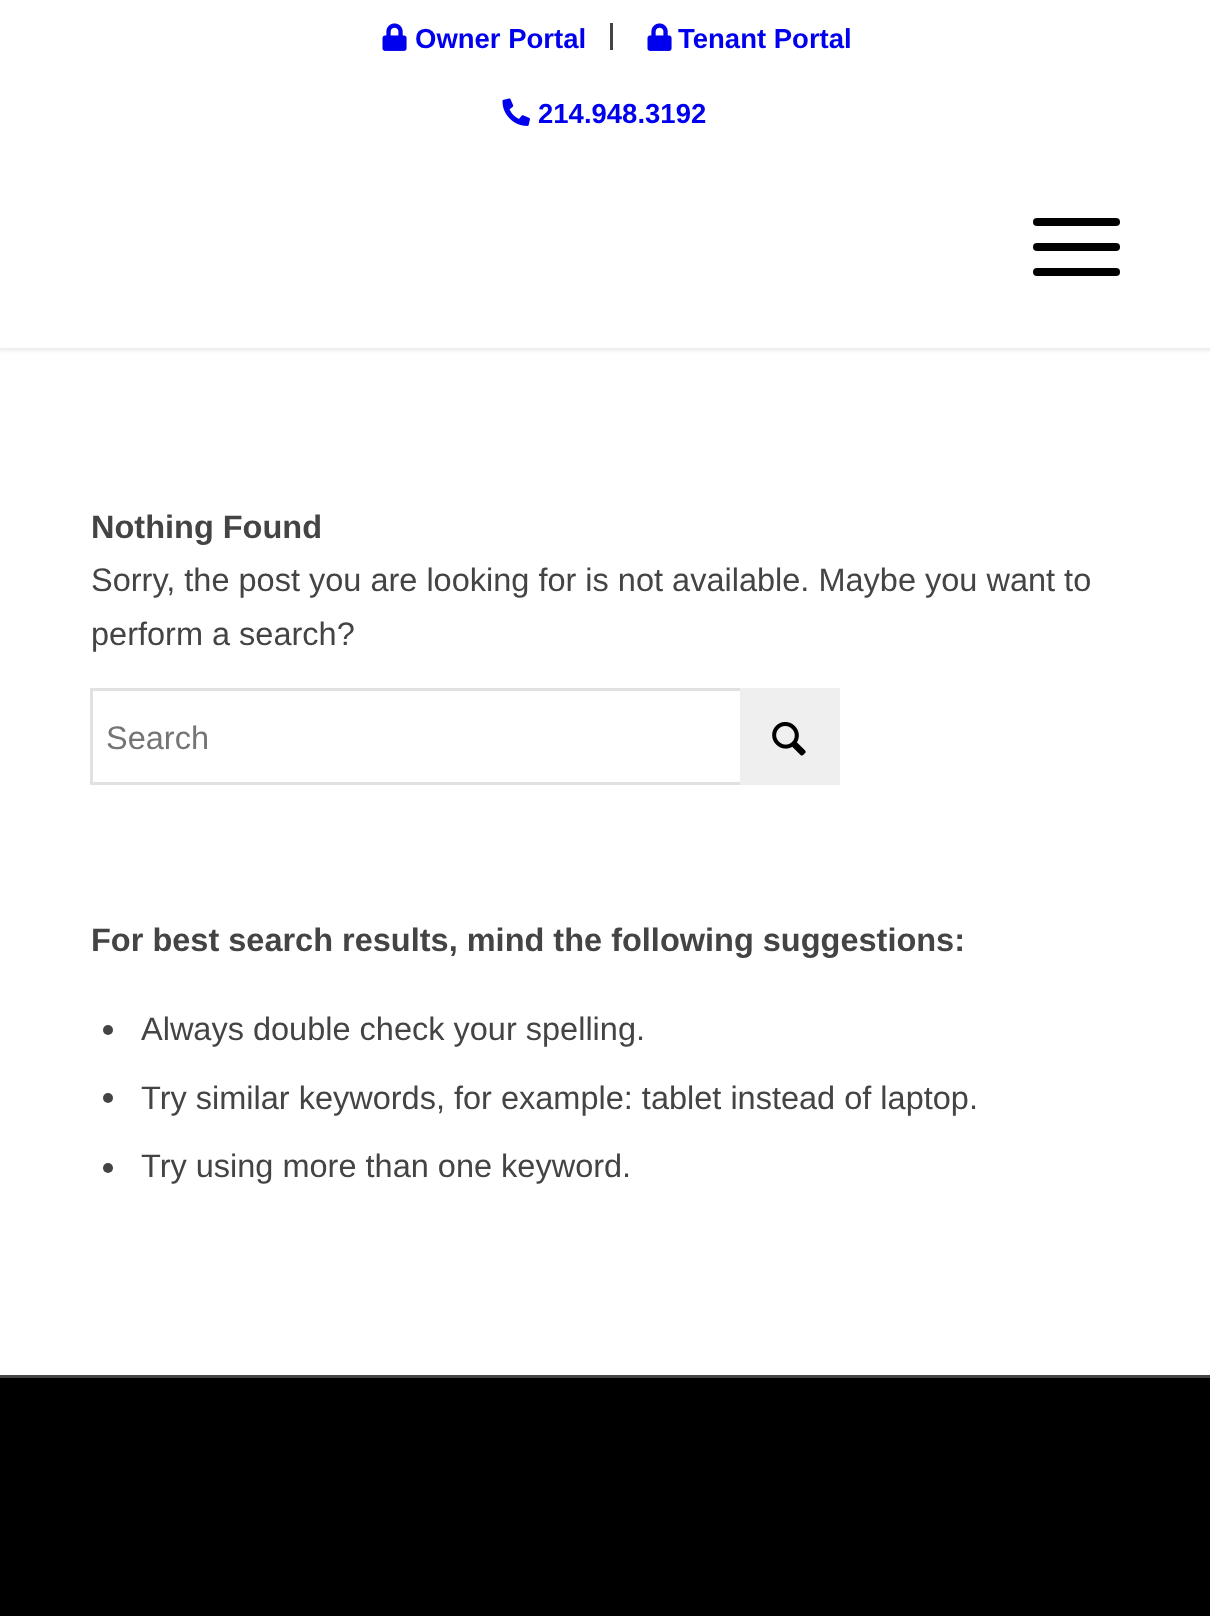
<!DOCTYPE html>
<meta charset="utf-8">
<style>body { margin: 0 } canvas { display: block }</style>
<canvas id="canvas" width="1210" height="1616"></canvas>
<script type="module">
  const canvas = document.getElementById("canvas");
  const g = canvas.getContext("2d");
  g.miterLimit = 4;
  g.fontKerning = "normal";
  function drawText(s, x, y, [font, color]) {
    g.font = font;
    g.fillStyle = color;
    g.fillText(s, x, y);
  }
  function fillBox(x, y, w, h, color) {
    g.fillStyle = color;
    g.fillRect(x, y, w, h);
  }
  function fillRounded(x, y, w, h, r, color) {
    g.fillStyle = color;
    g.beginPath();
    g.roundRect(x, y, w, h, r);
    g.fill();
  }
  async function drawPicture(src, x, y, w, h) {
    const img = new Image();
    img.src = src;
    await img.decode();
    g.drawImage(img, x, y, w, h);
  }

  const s1 = ["bold 27.5px Liberation Sans", "#0000EE"];
  const s2 = ["bold 32.5px Liberation Sans", "#444444"];
  const s3 = ["32.5px Liberation Sans", "#444444"];
  const s4 = ["32.5px Liberation Sans", "#757575"];

  fillBox(0, 0, 1210, 1616, "#FFFFFF");
  g.save();
  g.beginPath();
  g.moveTo(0, 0);
  g.lineTo(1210, 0);
  g.lineTo(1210, 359);
  g.lineTo(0, 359);
  g.closePath();
  g.moveTo(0, 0);
  g.lineTo(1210, 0);
  g.lineTo(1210, 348);
  g.lineTo(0, 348);
  g.closePath();
  g.clip("evenodd");
  g.fillStyle = "rgba(0, 0, 0, 0.1)";
  g.filter = "blur(2.5px)";
  g.beginPath();
  g.rect(-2, -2, 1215, 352);
  g.fill();
  g.filter = "none";
  g.restore();
  fillBox(610, 23, 3, 27, "#444444");
  await drawPicture("pic1.png", 382, 23, 25, 28);
  drawText("Owner Portal", 415, 48, s1);
  await drawPicture("pic1.png", 647, 23, 25, 28);
  drawText("Tenant Portal", 678, 48, s1);
  await drawPicture("pic2.png", 502, 98, 28, 28);
  drawText("214.948.3192", 538, 123, s1);
  fillRounded(1033, 243, 87, 8, 4, "#000000");
  fillRounded(1033, 218, 87, 8, 4, "#000000");
  fillRounded(1033, 268, 87, 8, 4, "#000000");
  drawText("Nothing Found", 91, 538, s2);
  drawText("Sorry, the post you are looking for is not available. Maybe you want to", 91, 591, s3);
  drawText("perform a search?", 91, 645, s3);
  g.strokeStyle = "#E1E1E1";
  g.lineWidth = 3;
  g.strokeRect(91.5, 689.5, 747, 94);
  fillBox(740, 688, 100, 97, "#EFEFEF");
  drawText("Search", 106, 749, s4);
  await drawPicture("pic3.png", 772, 721, 34, 35);
  drawText("For best search results, mind the following suggestions:", 91, 951, s2);
  g.beginPath();
  g.arc(108, 1030, 5, 0, Math.PI * 2);
  g.fill();
  drawText("Always double check your spelling.", 141, 1040, s3);
  g.beginPath();
  g.arc(108, 1098, 5, 0, Math.PI * 2);
  g.fill();
  drawText("Try similar keywords, for example: tablet instead of laptop.", 141, 1109, s3);
  g.beginPath();
  g.arc(108, 1168, 5, 0, Math.PI * 2);
  g.fill();
  drawText("Try using more than one keyword.", 141, 1177, s3);
  fillBox(0, 1378, 1210, 238, "#000000");
  fillBox(0, 1375, 1210, 3, "#444444");
</script>
